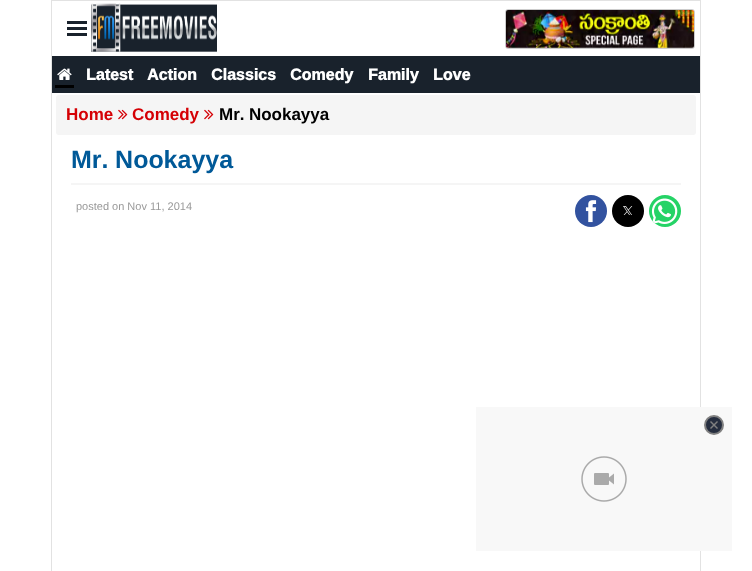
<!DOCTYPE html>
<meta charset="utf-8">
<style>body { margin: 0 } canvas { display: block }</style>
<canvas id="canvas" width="752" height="571"></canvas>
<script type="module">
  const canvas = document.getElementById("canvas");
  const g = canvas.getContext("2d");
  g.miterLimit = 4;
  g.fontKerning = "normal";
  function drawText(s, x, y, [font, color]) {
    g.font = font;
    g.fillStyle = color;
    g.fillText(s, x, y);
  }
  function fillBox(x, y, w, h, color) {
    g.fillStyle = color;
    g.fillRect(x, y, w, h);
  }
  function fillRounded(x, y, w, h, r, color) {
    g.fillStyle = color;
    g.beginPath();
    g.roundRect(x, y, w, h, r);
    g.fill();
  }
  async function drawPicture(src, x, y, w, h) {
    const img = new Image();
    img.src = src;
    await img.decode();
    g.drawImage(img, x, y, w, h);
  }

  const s1 = ["bold 16px Ramabhadra", "#FFFFFF"];
  const s2 = ["bold 17px Liberation Sans", "#D50005"];
  const s3 = ["17px Ramabhadra", "#000000"];
  const s4 = ["25px Ramabhadra", "#005998"];
  const s5 = ["11px Liberation Sans", "#999999"];

  fillBox(0, 0, 752, 571, "#FFFFFF");
  g.strokeStyle = "#E2E2E2";
  g.strokeRect(51.5, 0.5, 649, 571);
  fillBox(67, 27, 20, 3, "#19222C");
  fillBox(67, 21, 20, 3, "#19222C");
  fillBox(67, 33, 20, 3, "#19222C");
  await drawPicture("pic1.png", 91, 3, 126, 49);
  g.beginPath();
  g.roundRect(505.5, 9.5, 189, 39, 2.5);
  g.strokeStyle = "#CCCCCC";
  g.stroke();
  await drawPicture("pic2.png", 506, 10, 188, 38);
  fillBox(52, 56, 648, 37, "#19222C");
  fillBox(55, 85, 19, 3, "#000000");
  await drawPicture("pic3.png", 57, 68, 15, 12);
  drawText("Latest", 86, 80, s1);
  drawText("Action", 147, 80, s1);
  drawText("Classics", 211, 80, s1);
  drawText("Comedy", 290, 80, s1);
  drawText("Family", 368, 80, s1);
  drawText("Love", 433, 80, s1);
  fillRounded(56, 95, 640, 40, 3, "#F5F5F5");
  drawText("Home", 66, 120, s2);
  await drawPicture("pic4.png", 118, 109, 10, 11);
  drawText("Comedy", 132, 120, s2);
  await drawPicture("pic4.png", 204, 109, 10, 11);
  drawText("Mr. Nookayya", 219, 120, s3);
  fillBox(71, 183, 610, 2, "#F5F5F5");
  drawText("Mr. Nookayya", 71, 168, s4);
  drawText("posted on Nov 11, 2014", 76, 210, s5);
  g.fillStyle = "#32529F";
  g.beginPath();
  g.arc(591, 211, 16, 0, Math.PI * 2);
  g.fill();
  await drawPicture("pic5.png", 585, 200, 12, 23);
  g.fillStyle = "#000000";
  g.beginPath();
  g.arc(628, 211, 16, 0, Math.PI * 2);
  g.fill();
  await drawPicture("pic6.png", 623, 206, 10, 9);
  g.fillStyle = "#25D366";
  g.beginPath();
  g.arc(665, 211, 16, 0, Math.PI * 2);
  g.fill();
  await drawPicture("pic7.png", 651, 198, 27, 26);
  fillBox(476, 407, 256, 144, "#F8F8F8");
  await drawPicture("pic9.png", 594, 473, 20, 12);
  await drawPicture("pic8.png", 581, 456, 46, 46);
  g.fillStyle = "#262E3F";
  g.beginPath();
  g.arc(714, 425, 9, 0, Math.PI * 2);
  g.fill();
  g.strokeStyle = "#808080";
  g.lineWidth = 2;
  g.stroke();
  g.fillStyle = "#808080";
  g.beginPath();
  g.moveTo(711, 421);
  g.lineTo(718, 428);
  g.lineTo(717, 429);
  g.lineTo(710, 422);
  g.closePath();
  g.fill();
  g.beginPath();
  g.moveTo(710, 428);
  g.lineTo(717, 421);
  g.lineTo(718, 422);
  g.lineTo(711, 429);
  g.closePath();
  g.fill();
</script>
